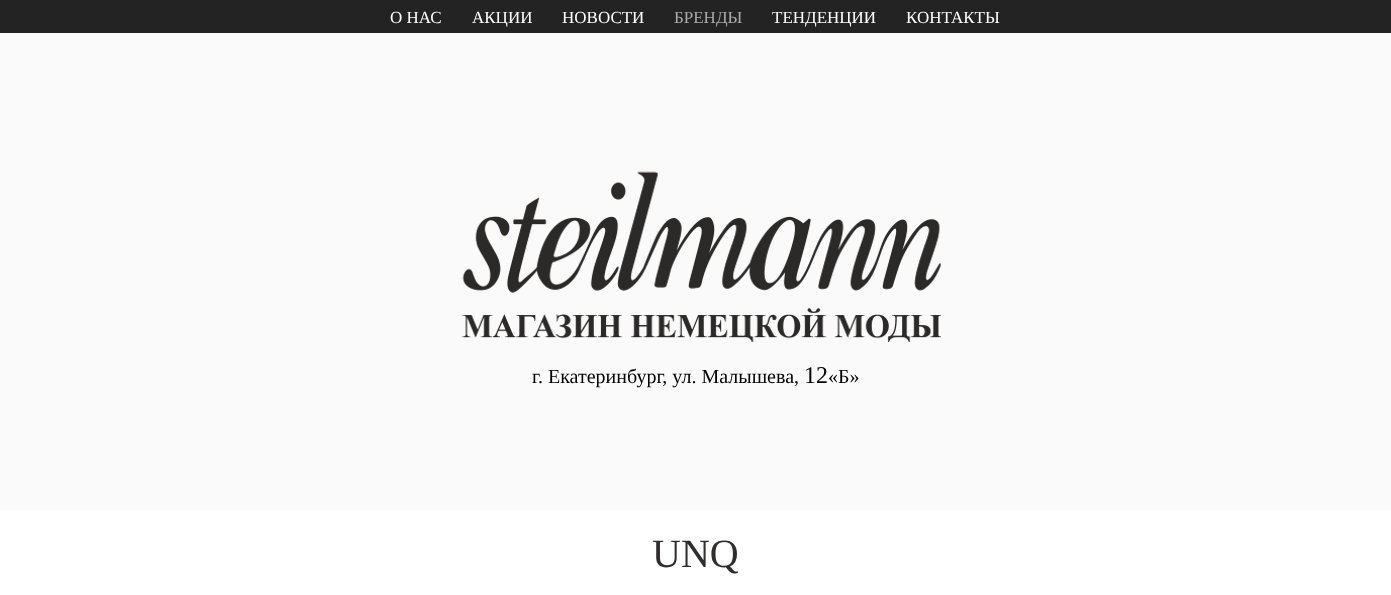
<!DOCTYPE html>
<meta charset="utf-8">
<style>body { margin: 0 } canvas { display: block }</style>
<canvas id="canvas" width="1391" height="595"></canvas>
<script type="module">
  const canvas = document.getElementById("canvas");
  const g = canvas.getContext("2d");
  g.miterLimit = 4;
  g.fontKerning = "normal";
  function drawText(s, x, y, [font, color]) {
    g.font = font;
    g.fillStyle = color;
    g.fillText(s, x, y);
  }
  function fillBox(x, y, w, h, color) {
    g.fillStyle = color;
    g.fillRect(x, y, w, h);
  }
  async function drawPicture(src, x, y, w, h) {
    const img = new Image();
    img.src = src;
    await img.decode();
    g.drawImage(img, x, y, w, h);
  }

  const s1 = ["17px Liberation Serif", "#FFFFFF"];
  const s2 = ["17px Liberation Serif", "#AAAAAA"];
  const s3 = ["20px Liberation Serif", "#000000"];
  const s4 = ["24px Liberation Serif", "#000000"];
  const s5 = ["40px Liberation Serif", "#302D2D"];

  fillBox(0, 0, 1391, 595, "#FFFFFF");
  fillBox(0, 0, 1391, 33, "#242323");
  drawText("О НАС", 390, 23, s1);
  drawText("АКЦИИ", 472, 23, s1);
  drawText("НОВОСТИ", 562, 23, s1);
  drawText("БРЕНДЫ", 674, 23, s2);
  drawText("ТЕНДЕНЦИИ", 772, 23, s1);
  drawText("КОНТАКТЫ", 906, 23, s1);
  fillBox(0, 33, 1391, 477, "#FAFAFA");
  await drawPicture("pic1.png", 462, 171, 479, 171);
  drawText("г. Екатеринбург, ул. Малышева,", 532, 383, s3);
  drawText("12", 804, 383, s4);
  drawText("«Б»", 828, 383, s3);
  drawText("UNQ", 652, 567, s5);
</script>
